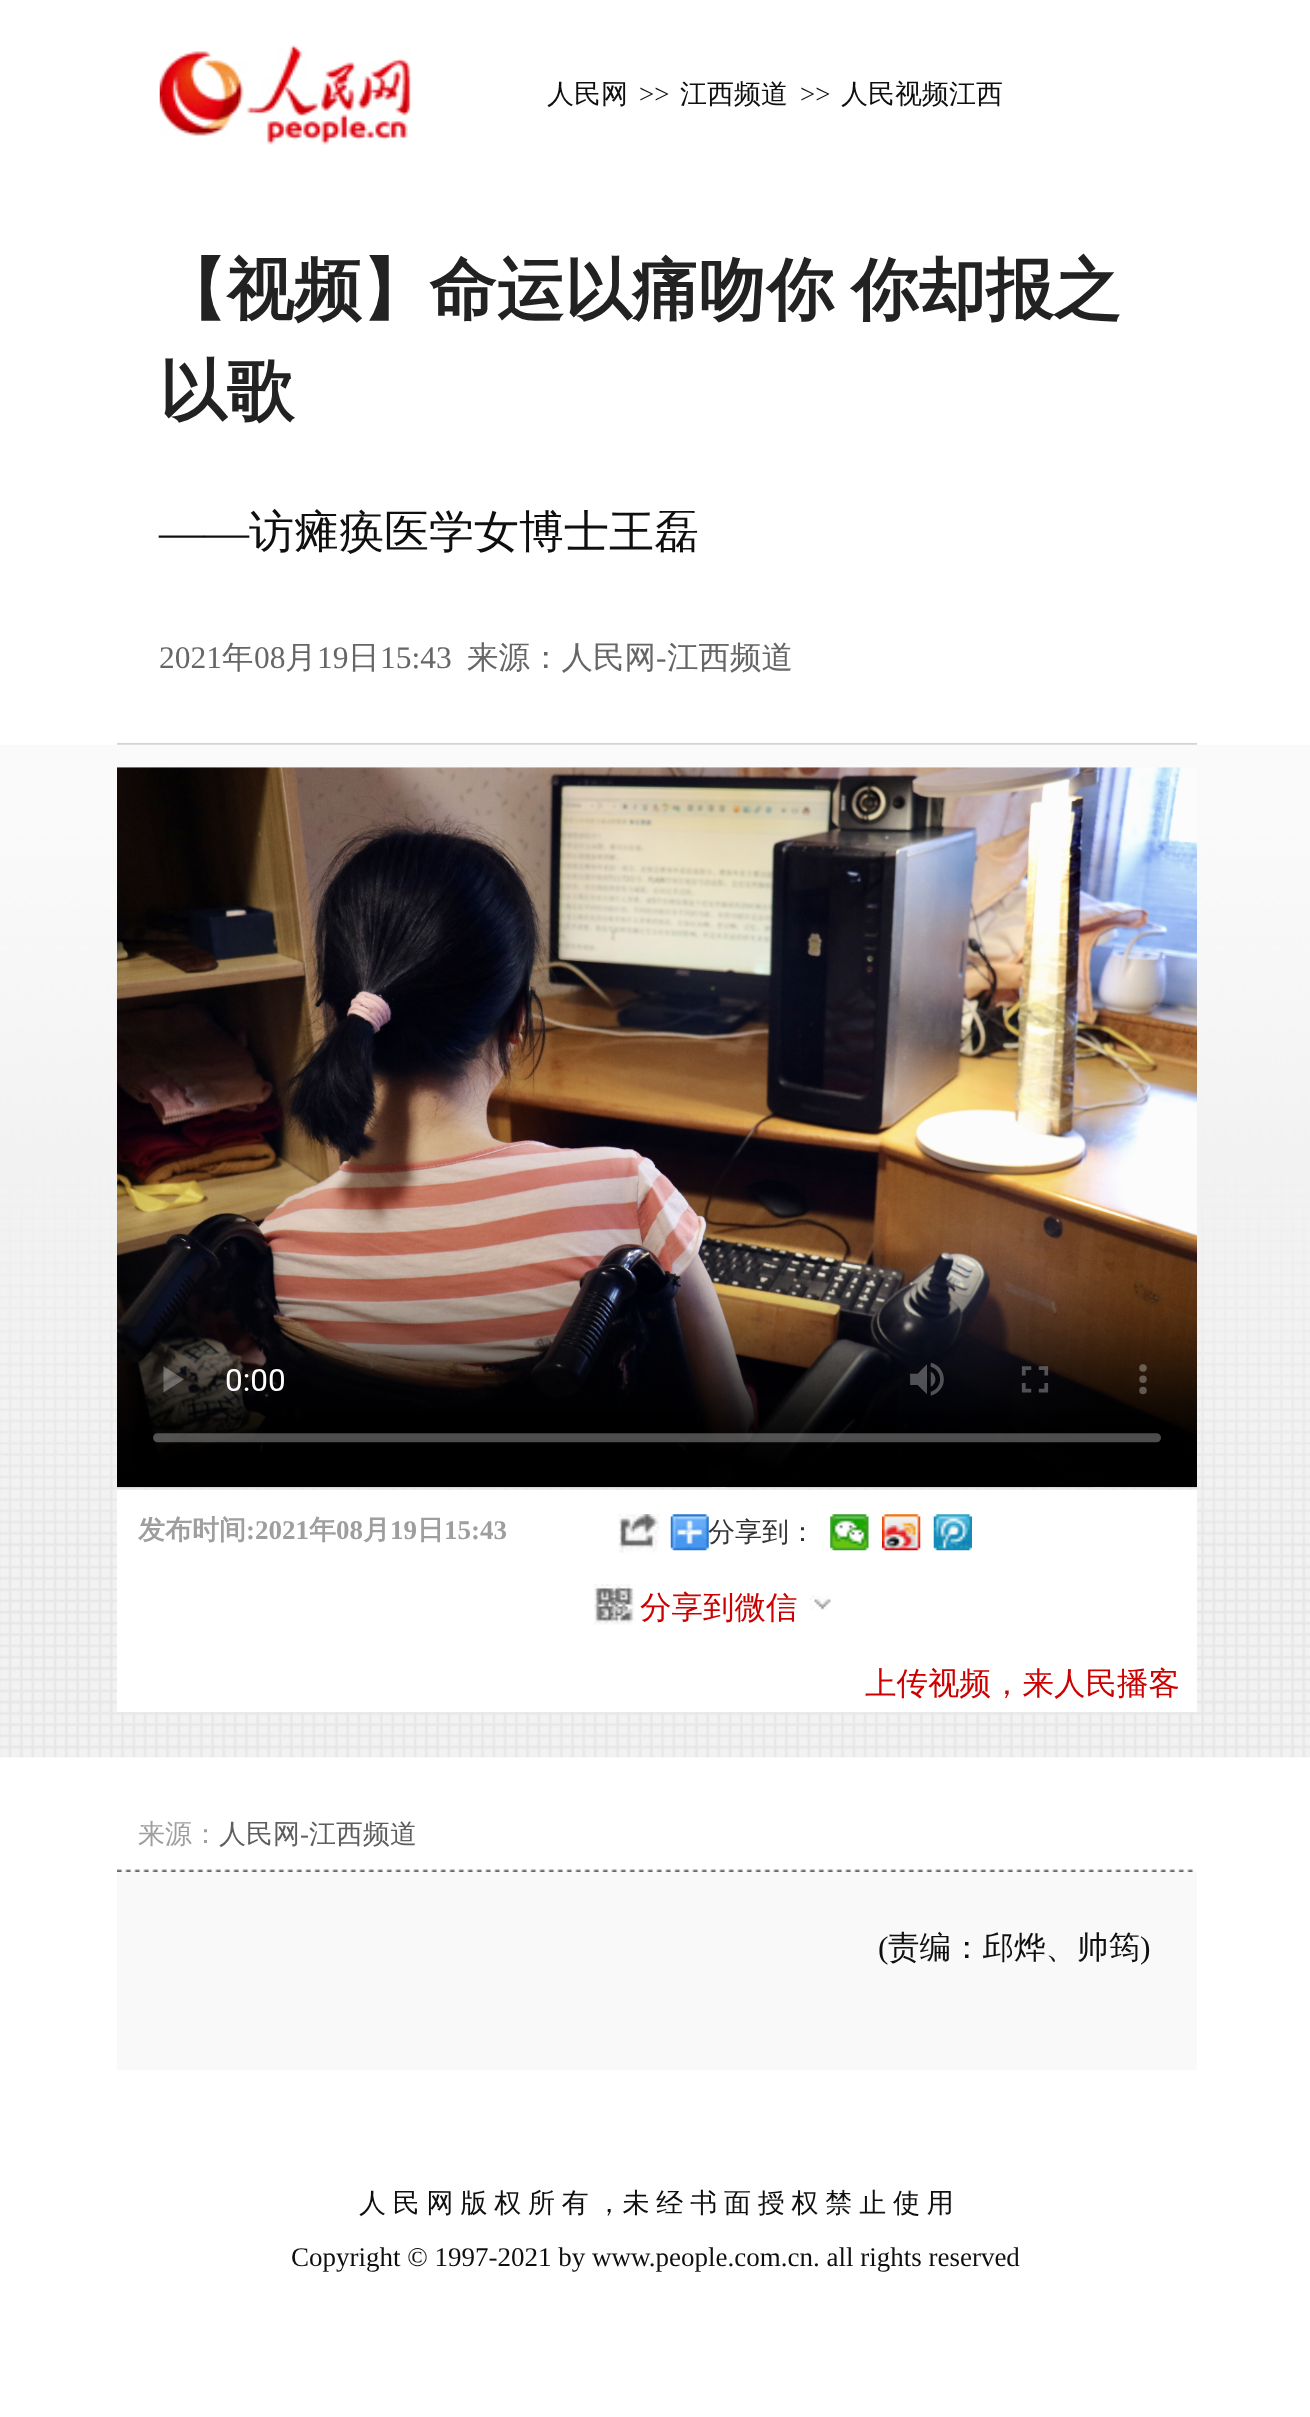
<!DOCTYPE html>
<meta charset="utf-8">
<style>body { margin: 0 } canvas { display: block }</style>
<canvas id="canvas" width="1310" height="2417"></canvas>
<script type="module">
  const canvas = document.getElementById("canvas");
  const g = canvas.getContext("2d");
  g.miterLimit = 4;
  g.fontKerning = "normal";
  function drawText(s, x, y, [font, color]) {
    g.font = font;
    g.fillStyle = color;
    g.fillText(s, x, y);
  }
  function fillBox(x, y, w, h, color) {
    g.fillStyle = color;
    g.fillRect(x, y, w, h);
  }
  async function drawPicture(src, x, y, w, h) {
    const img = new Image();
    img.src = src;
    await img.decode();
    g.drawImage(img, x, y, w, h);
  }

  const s1 = ["500 27px WenQuanYi Zen Hei", "#0F0F0F"];
  const s2 = ["27px Liberation Serif", "#0F0F0F"];
  const s3 = ["bold 67.5px WenQuanYi Zen Hei", "#222222"];
  const s4 = ["45px Liberation Serif", "#0F0F0F"];
  const s5 = ["500 45px WenQuanYi Zen Hei", "#0F0F0F"];
  const s6 = ["31.5px Liberation Serif", "#666666"];
  const s7 = ["500 31.5px WenQuanYi Zen Hei", "#666666"];
  const s8 = ["bold 27px WenQuanYi Zen Hei", "#9E9E9E"];
  const s9 = ["bold 27px Liberation Serif", "#9E9E9E"];
  const s10 = ["500 27px WenQuanYi Zen Hei", "#333333"];
  const s11 = ["500 31.5px WenQuanYi Zen Hei", "#CC0000"];
  const s12 = ["500 27px WenQuanYi Zen Hei", "#9E9E9E"];
  const s13 = ["500 27px WenQuanYi Zen Hei", "#5E5E5E"];
  const s14 = ["27px Liberation Serif", "#5E5E5E"];
  const s15 = ["31.5px Liberation Serif", "#0F0F0F"];
  const s16 = ["500 31.5px WenQuanYi Zen Hei", "#0F0F0F"];

  fillBox(0, 0, 1310, 2417, "#FFFFFF");
  await drawPicture("pic1.png", 159, 45, 253, 100);
  drawText("人民网", 547, 103, s1);
  drawText(">>", 639, 103, s2);
  drawText("江西频道", 680, 103, s1);
  drawText(">>", 800, 103, s2);
  drawText("人民视频江西", 841, 103, s1);
  fillBox(117, 743, 1080, 2, "#D3D3D3");
  drawText("【视频】命运以痛吻你", 159, 313, s3);
  drawText("你却报之", 851, 313, s3);
  drawText("以歌", 159, 414, s3);
  drawText("——", 159, 547, s4);
  drawText("访瘫痪医学女博士王磊", 249, 547, s5);
  drawText("2021", 159, 668, s6);
  drawText("年", 222, 668, s7);
  drawText("08", 254, 668, s6);
  drawText("月", 285, 668, s7);
  drawText("19", 317, 668, s6);
  drawText("日", 348, 668, s7);
  drawText("15:43", 380, 668, s6);
  drawText("来源：人民网", 467, 668, s7);
  drawText("-", 656, 668, s6);
  drawText("江西频道", 667, 668, s7);
  await drawPicture("pic2.png", 0, 744, 1310, 1014);
  await drawPicture("pic3.png", 117, 767, 1080, 721);
  fillBox(117, 1490, 1080, 222, "#FFFFFF");
  drawText("发布时间", 138, 1539, s8);
  drawText(":2021", 246, 1539, s9);
  drawText("年", 309, 1539, s8);
  drawText("08", 336, 1539, s9);
  drawText("月", 363, 1539, s8);
  drawText("19", 390, 1539, s9);
  drawText("日", 417, 1539, s8);
  drawText("15:43", 444, 1539, s9);
  await drawPicture("pic4.png", 618, 1514, 42, 39);
  await drawPicture("pic5.png", 670, 1514, 39, 37);
  drawText("分享到：", 708, 1541, s10);
  await drawPicture("pic6.png", 830, 1514, 39, 37);
  await drawPicture("pic7.png", 882, 1514, 39, 37);
  await drawPicture("pic8.png", 933, 1514, 39, 37);
  await drawPicture("pic9.png", 594, 1584, 41, 41);
  drawText("分享到微信", 640, 1618, s11);
  await drawPicture("pic10.png", 810, 1595, 21, 15);
  drawText("上传视频，来人民播客", 865, 1694, s11);
  await drawPicture("pic11.png", 117, 1869, 1077, 3);
  drawText("来源：", 138, 1843, s12);
  drawText("人民网", 219, 1843, s13);
  drawText("-", 300, 1843, s14);
  drawText("江西频道", 309, 1843, s13);
  fillBox(117, 1872, 1080, 198, "#F9F9F9");
  drawText("(", 878, 1958, s15);
  drawText("责编：邱烨、帅筠", 888, 1958, s16);
  drawText(")", 1140, 1958, s15);
  g.wordSpacing = "-1.3px";
  drawText("人 民 网 版 权 所 有 ，未 经 书 面 授 权 禁 止 使 用", 359, 2212, s1);
  g.wordSpacing = "0px";
  drawText("Copyright © 1997-2021 by www.people.com.cn. all rights reserved", 291, 2266, s2);
</script>
